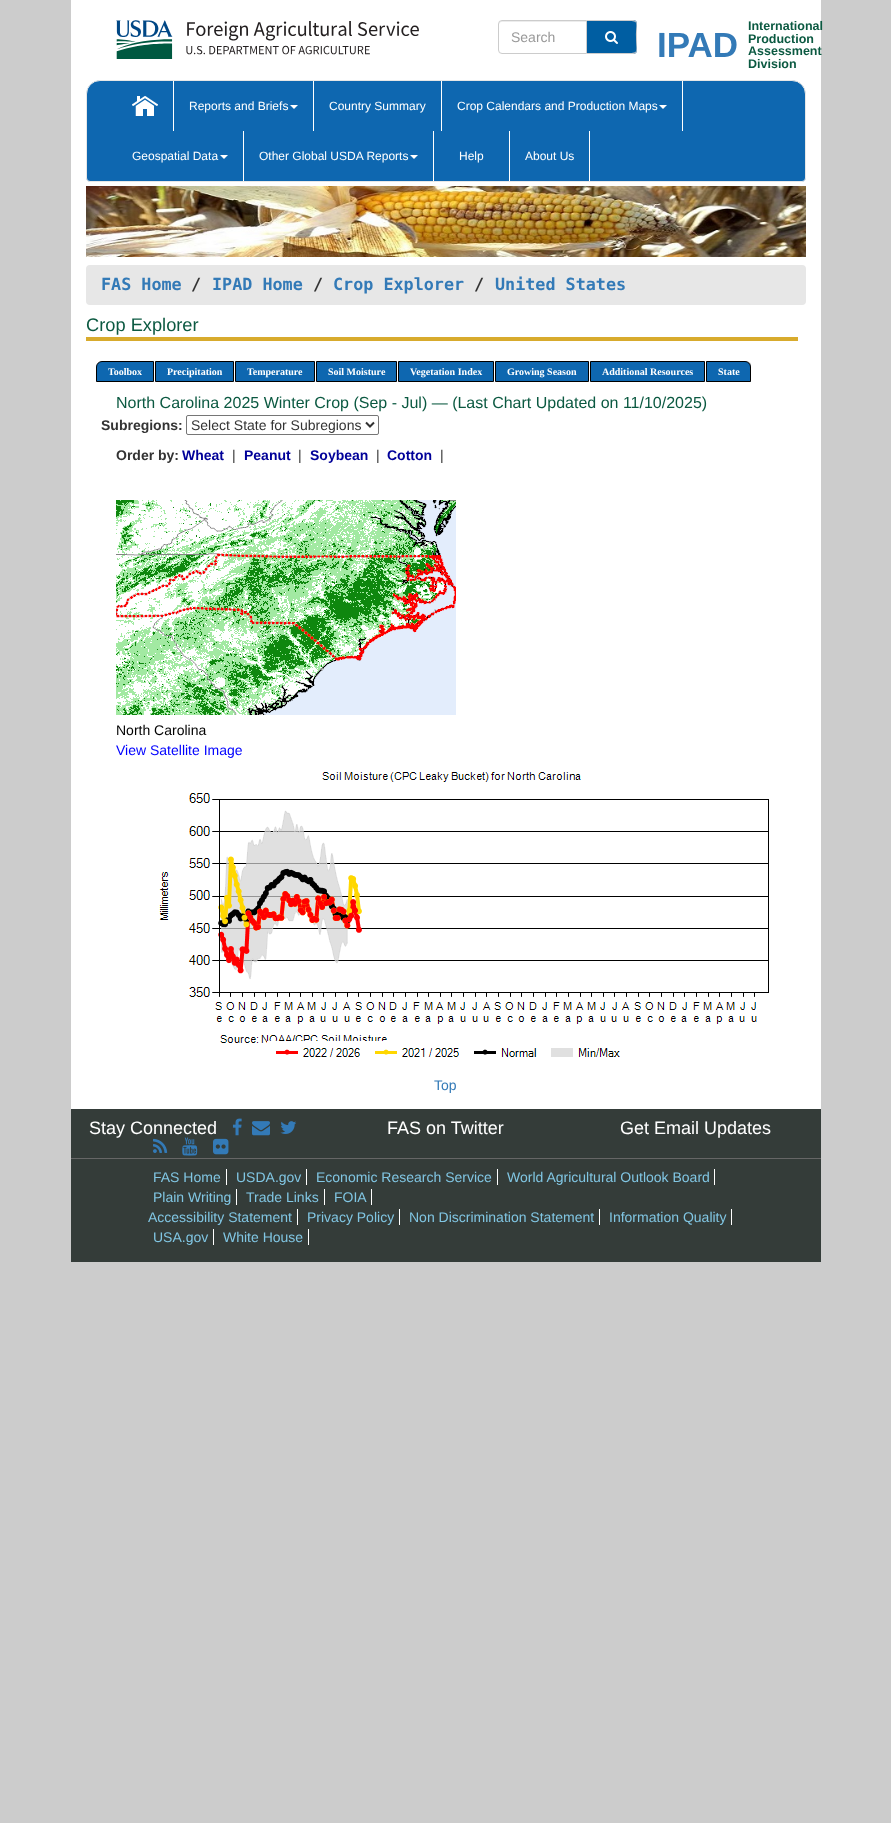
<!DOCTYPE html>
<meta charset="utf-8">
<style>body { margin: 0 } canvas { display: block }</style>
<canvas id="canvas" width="891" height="1823"></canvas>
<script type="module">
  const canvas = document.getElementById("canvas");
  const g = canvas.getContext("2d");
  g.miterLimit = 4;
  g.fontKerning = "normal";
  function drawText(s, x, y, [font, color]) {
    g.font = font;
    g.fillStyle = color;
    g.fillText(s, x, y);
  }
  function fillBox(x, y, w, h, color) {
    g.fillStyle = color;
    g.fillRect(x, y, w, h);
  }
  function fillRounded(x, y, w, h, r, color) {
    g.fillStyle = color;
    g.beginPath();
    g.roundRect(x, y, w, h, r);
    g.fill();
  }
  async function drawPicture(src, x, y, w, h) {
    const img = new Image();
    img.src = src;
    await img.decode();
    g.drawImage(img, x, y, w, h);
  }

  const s1 = ["14px Liberation Sans", "#999999"];
  const s2 = ["bold 35px Liberation Sans", "#337AB7"];
  const s3 = ["bold 12.5px Liberation Sans", "#0B5941"];
  const s4 = ["12px Liberation Sans", "#FFFFFF"];
  const s5 = ["bold 16.75px DejaVu Sans Mono", "#337AB7"];
  const s6 = ["bold 16.75px DejaVu Sans Mono", "#333333"];
  const s7 = ["18.25px Liberation Sans", "#0B5941"];
  const s8 = ["bold 10px Liberation Serif", "#FFFFFF"];
  const s9 = ["16px Liberation Sans", "#0B5941"];
  const s10 = ["bold 14px Liberation Sans", "#333333"];
  const s11 = ["14px Liberation Sans", "#333333"];
  const s12 = ["bold 14px Liberation Sans", "#000099"];
  const s13 = ["14px Liberation Sans", "#000000"];
  const s14 = ["14px Liberation Sans", "#0000FF"];
  const s15 = ["14px Liberation Sans", "#337AB7"];
  const s16 = ["18px Liberation Sans", "#FFFFFF"];
  const s17 = ["14px Liberation Sans", "#81C6E3"];

  fillBox(0, 0, 891, 1823, "#CCCCCC");
  fillBox(71, 0, 750, 1109, "#FFFFFF");
  await drawPicture("pic1.png", 116, 20, 303, 39);
  g.fillStyle = "#ECECEC";
  g.beginPath();
  g.moveTo(502, 22);
  g.lineTo(586, 22);
  g.lineTo(586, 21);
  g.lineTo(502, 21);
  g.bezierCurveTo(500, 21, 499, 22, 499, 24);
  g.lineTo(499, 25);
  g.bezierCurveTo(499, 23, 500, 22, 502, 22);
  g.closePath();
  g.fill();
  g.beginPath();
  g.roundRect(498.5, 20.5, 88, 33, [3.5, 0, 0, 3.5]);
  g.strokeStyle = "#CCCCCC";
  g.stroke();
  drawText("Search", 511, 42, s1);
  g.fillStyle = "#005EA2";
  g.beginPath();
  g.roundRect(587, 20, 50, 34, [0, 4, 4, 0]);
  g.fill();
  g.fillStyle = "#CCCCCC";
  g.beginPath();
  g.moveTo(587, 20);
  g.lineTo(633, 20);
  g.bezierCurveTo(635, 20, 637, 22, 637, 24);
  g.lineTo(637, 50);
  g.bezierCurveTo(637, 52, 635, 54, 633, 54);
  g.lineTo(587, 54);
  g.closePath();
  g.moveTo(587, 21);
  g.lineTo(625, 21);
  g.bezierCurveTo(640, 21, 636, 21, 636, 37);
  g.bezierCurveTo(636, 53, 640, 53, 625, 53);
  g.lineTo(587, 53);
  g.closePath();
  g.fill("evenodd");
  await drawPicture("pic2.png", 605, 31, 13, 13);
  drawText("IPAD", 657, 57, s2);
  drawText("International", 748, 30, s3);
  drawText("Production", 748, 43, s3);
  drawText("Assessment", 748, 55, s3);
  drawText("Division", 748, 68, s3);
  g.fillStyle = "#0E67B0";
  g.beginPath();
  g.roundRect(86.5, 80.5, 719, 101, [13.5, 13.5, 3.5, 3.5]);
  g.fill();
  g.strokeStyle = "#E7E7E7";
  g.stroke();
  fillBox(173, 81, 1, 50, "#FFFFFF");
  await drawPicture("pic3.png", 132, 96, 26, 20);
  fillBox(313, 81, 1, 50, "#FFFFFF");
  drawText("Reports and Briefs", 189, 110, s4);
  g.beginPath();
  g.moveTo(290, 105);
  g.lineTo(298, 105);
  g.lineTo(294, 109);
  g.closePath();
  g.fill();
  fillBox(441, 81, 1, 50, "#FFFFFF");
  drawText("Country Summary", 329, 110, s4);
  fillBox(682, 81, 1, 50, "#FFFFFF");
  drawText("Crop Calendars and Production Maps", 457, 110, s4);
  g.beginPath();
  g.moveTo(659, 105);
  g.lineTo(667, 105);
  g.lineTo(663, 109);
  g.closePath();
  g.fill();
  fillBox(243, 131, 1, 50, "#FFFFFF");
  drawText("Geospatial Data", 132, 160, s4);
  g.beginPath();
  g.moveTo(220, 155);
  g.lineTo(228, 155);
  g.lineTo(224, 159);
  g.closePath();
  g.fill();
  fillBox(433, 131, 1, 50, "#FFFFFF");
  drawText("Other Global USDA Reports", 259, 160, s4);
  g.beginPath();
  g.moveTo(410, 155);
  g.lineTo(418, 155);
  g.lineTo(414, 159);
  g.closePath();
  g.fill();
  fillBox(509, 131, 1, 50, "#FFFFFF");
  drawText("Help", 459, 160, s4);
  fillBox(589, 131, 1, 50, "#FFFFFF");
  drawText("About Us", 525, 160, s4);
  await drawPicture("pic4.png", 86, 186, 720, 71);
  fillRounded(86, 265, 720, 40, 4, "#E7E7E7");
  drawText("FAS Home", 101, 290, s5);
  drawText("/", 191, 290, s6);
  drawText("IPAD Home", 212, 290, s5);
  drawText("/", 313, 290, s6);
  drawText("Crop Explorer", 333, 290, s5);
  drawText("/", 474, 290, s6);
  drawText("United States", 495, 290, s5);
  fillBox(86, 337, 712, 4, "#D8AB2D");
  drawText("Crop Explorer", 86, 331, s7);
  g.fillStyle = "#0E67B0";
  g.beginPath();
  g.roundRect(96.5, 361.5, 57, 20, [5.5, 0, 0, 0]);
  g.fill();
  g.strokeStyle = "#000000";
  g.stroke();
  drawText("Toolbox", 108, 375, s8);
  g.fillStyle = "#0E67B0";
  g.beginPath();
  g.rect(155.5, 361.5, 78, 20);
  g.fill();
  g.stroke();
  drawText("Precipitation", 167, 375, s8);
  g.fillStyle = "#0E67B0";
  g.beginPath();
  g.rect(235.5, 361.5, 79, 20);
  g.fill();
  g.stroke();
  drawText("Temperature", 247, 375, s8);
  g.fillStyle = "#0E67B0";
  g.beginPath();
  g.rect(316.5, 361.5, 80, 20);
  g.fill();
  g.stroke();
  drawText("Soil Moisture", 328, 375, s8);
  g.fillStyle = "#0E67B0";
  g.beginPath();
  g.rect(398.5, 361.5, 95, 20);
  g.fill();
  g.stroke();
  drawText("Vegetation Index", 410, 375, s8);
  g.fillStyle = "#0E67B0";
  g.beginPath();
  g.rect(495.5, 361.5, 93, 20);
  g.fill();
  g.stroke();
  drawText("Growing Season", 507, 375, s8);
  g.fillStyle = "#0E67B0";
  g.beginPath();
  g.rect(590.5, 361.5, 114, 20);
  g.fill();
  g.stroke();
  drawText("Additional Resources", 602, 375, s8);
  g.fillStyle = "#C8C8C8";
  g.beginPath();
  g.roundRect(706, 361, 46, 21, [0, 6, 0, 0]);
  g.fill();
  fillBox(751, 364, 1, 18, "#FFFFFF");
  g.fillStyle = "#0E67B0";
  g.beginPath();
  g.roundRect(706.5, 361.5, 44, 20, [0, 5.5, 0, 0]);
  g.fill();
  g.stroke();
  drawText("State", 718, 375, s8);
  drawText("North Carolina 2025 Winter Crop (Sep - Jul) — (Last Chart Updated on 11/10/2025)", 116, 408, s9);
  drawText("Subregions:", 101, 430, s10);
  g.beginPath();
  g.roundRect(186.5, 415.5, 192, 19, 1.5);
  g.strokeStyle = "#767676";
  g.stroke();
  g.beginPath();
  g.moveTo(366, 422.5);
  g.lineTo(370, 426.5);
  g.lineTo(374, 422.5);
  g.strokeStyle = "#333333";
  g.lineWidth = 2;
  g.stroke();
  drawText("Select State for Subregions", 191, 430, s11);
  drawText("Order by:", 116, 460, s10);
  drawText("Wheat", 182, 460, s12);
  drawText("|", 232, 460, s11);
  drawText("Peanut", 244, 460, s12);
  drawText("|", 298, 460, s11);
  drawText("Soybean", 310, 460, s12);
  drawText("|", 376, 460, s11);
  drawText("Cotton", 387, 460, s12);
  drawText("|", 440, 460, s11);
  await drawPicture("pic5.png", 116, 500, 340, 215);
  drawText("North Carolina", 116, 735, s13);
  drawText("View Satellite Image", 116, 755, s14);
  await drawPicture("pic6.png", 159, 772, 610, 285);
  drawText("Top", 434, 1090, s15);
  fillBox(71, 1109, 750, 49, "#343C39");
  drawText("Stay Connected", 89, 1134, s16);
  await drawPicture("pic7.png", 232, 1118, 10, 18);
  await drawPicture("pic8.png", 252, 1121, 18, 15);
  await drawPicture("pic9.png", 280, 1121, 17, 13);
  await drawPicture("pic10.png", 153, 1138, 15, 15);
  await drawPicture("pic11.png", 182, 1137, 16, 19);
  await drawPicture("pic12.png", 213, 1138, 16, 17);
  drawText("FAS on Twitter", 387, 1134, s16);
  drawText("Get Email Updates", 620, 1134, s16);
  fillBox(71, 1159, 750, 103, "#343C39");
  fillBox(71, 1158, 750, 1, "#666666");
  drawText("FAS Home", 153, 1182, s17);
  fillBox(226, 1169, 1, 16, "#FFFFFF");
  drawText("USDA.gov", 236, 1182, s17);
  fillBox(306, 1169, 1, 16, "#FFFFFF");
  drawText("Economic Research Service", 316, 1182, s17);
  fillBox(497, 1169, 1, 16, "#FFFFFF");
  drawText("World Agricultural Outlook Board", 507, 1182, s17);
  fillBox(714, 1169, 1, 16, "#FFFFFF");
  drawText("Plain Writing", 153, 1202, s17);
  fillBox(236, 1189, 1, 16, "#FFFFFF");
  drawText("Trade Links", 246, 1202, s17);
  fillBox(324, 1189, 1, 16, "#FFFFFF");
  drawText("FOIA", 334, 1202, s17);
  fillBox(371, 1189, 1, 16, "#FFFFFF");
  drawText("Accessibility Statement", 148, 1222, s17);
  fillBox(297, 1209, 1, 16, "#FFFFFF");
  drawText("Privacy Policy", 307, 1222, s17);
  fillBox(399, 1209, 1, 16, "#FFFFFF");
  drawText("Non Discrimination Statement", 409, 1222, s17);
  fillBox(599, 1209, 1, 16, "#FFFFFF");
  drawText("Information Quality", 609, 1222, s17);
  fillBox(731, 1209, 1, 16, "#FFFFFF");
  drawText("USA.gov", 153, 1242, s17);
  fillBox(213, 1229, 1, 16, "#FFFFFF");
  drawText("White House", 223, 1242, s17);
  fillBox(308, 1229, 1, 16, "#FFFFFF");
</script>
